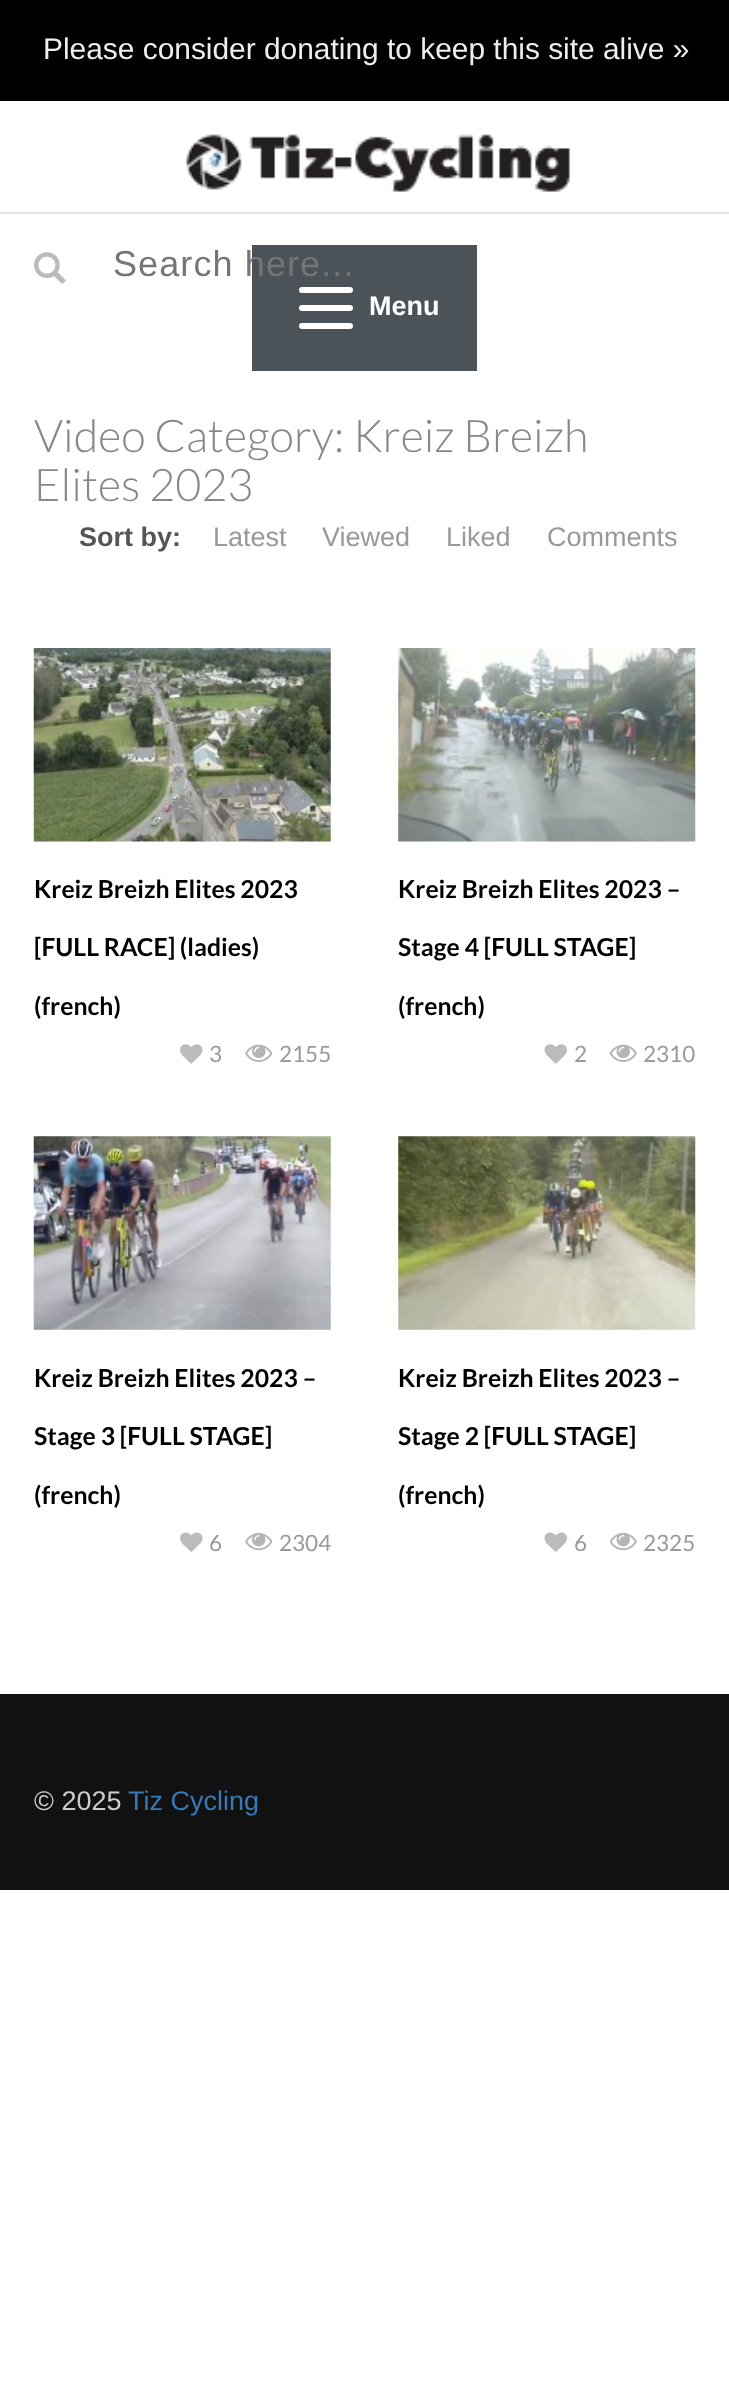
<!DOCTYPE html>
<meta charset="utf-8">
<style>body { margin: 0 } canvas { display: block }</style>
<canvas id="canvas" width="729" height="2401"></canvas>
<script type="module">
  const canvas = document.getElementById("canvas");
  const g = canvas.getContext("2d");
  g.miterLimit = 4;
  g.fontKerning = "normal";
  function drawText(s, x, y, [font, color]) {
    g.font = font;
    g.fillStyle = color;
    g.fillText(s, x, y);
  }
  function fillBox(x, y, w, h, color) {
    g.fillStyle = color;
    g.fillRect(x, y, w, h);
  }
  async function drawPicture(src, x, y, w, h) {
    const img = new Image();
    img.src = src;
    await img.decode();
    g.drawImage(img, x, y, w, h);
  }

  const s1 = ["29.9px Liberation Sans", "#EEEEEE"];
  const s2 = ["36px Liberation Sans", "#757575"];
  const s3 = ["bold 27px Liberation Sans", "#FFFFFF"];
  const s4 = ["300 45px Lato", "#888888"];
  const s5 = ["bold 27px Liberation Sans", "#555555"];
  const s6 = ["27px Liberation Sans", "#999999"];
  const s7 = ["bold 24.75px Lato", "#000000"];
  const s8 = ["22.5px Lato", "#999999"];
  const s9 = ["27px Liberation Sans", "#CCCCCC"];
  const s10 = ["27px Liberation Sans", "#337AB7"];

  fillBox(0, 0, 729, 2401, "#FFFFFF");
  fillBox(0, 0, 729, 101, "#000000");
  drawText("Please consider donating to keep this site alive »", 43, 59, s1);
  fillBox(0, 212, 729, 2, "#E5E5E5");
  await drawPicture("pic1.png", 186, 134, 384, 58);
  await drawPicture("pic2.png", 34, 252, 32, 32);
  fillBox(252, 245, 225, 126, "#4C5358");
  g.letterSpacing = "1.1px";
  drawText("Search here...", 113, 276, s2);
  g.beginPath();
  g.moveTo(302, 326);
  g.lineTo(350, 326);
  g.moveTo(302, 308);
  g.lineTo(350, 308);
  g.moveTo(302, 290);
  g.lineTo(350, 290);
  g.strokeStyle = "#FFFFFF";
  g.lineWidth = 6;
  g.lineCap = "round";
  g.stroke();
  g.letterSpacing = "0px";
  drawText("Menu", 369, 315, s3);
  drawText("Video Category: Kreiz Breizh", 34, 452, s4);
  drawText("Elites 2023", 34, 501, s4);
  drawText("Sort by:", 79, 546, s5);
  drawText("Latest", 213, 546, s6);
  drawText("Viewed", 322, 546, s6);
  drawText("Liked", 446, 546, s6);
  drawText("Comments", 547, 546, s6);
  await drawPicture("pic3.png", 33, 648, 298, 194);
  drawText("Kreiz Breizh Elites 2023", 34, 898, s7);
  drawText("[FULL RACE] (ladies)", 34, 956, s7);
  drawText("(french)", 34, 1015, s7);
  await drawPicture("pic4.png", 180, 1044, 23, 20);
  drawText("3", 209, 1062, s8);
  await drawPicture("pic5.png", 245, 1044, 28, 18);
  drawText("2155", 279, 1062, s8);
  await drawPicture("pic6.png", 398, 648, 298, 194);
  drawText("Kreiz Breizh Elites 2023 –", 398, 898, s7);
  drawText("Stage 4 [FULL STAGE]", 398, 956, s7);
  drawText("(french)", 398, 1015, s7);
  await drawPicture("pic7.png", 544, 1044, 23, 20);
  drawText("2", 574, 1062, s8);
  await drawPicture("pic8.png", 609, 1044, 28, 18);
  drawText("2310", 643, 1062, s8);
  await drawPicture("pic9.png", 33, 1136, 298, 194);
  drawText("Kreiz Breizh Elites 2023 –", 34, 1387, s7);
  drawText("Stage 3 [FULL STAGE]", 34, 1445, s7);
  drawText("(french)", 34, 1504, s7);
  await drawPicture("pic10.png", 180, 1532, 23, 20);
  drawText("6", 209, 1551, s8);
  await drawPicture("pic11.png", 245, 1532, 28, 19);
  drawText("2304", 279, 1551, s8);
  await drawPicture("pic12.png", 398, 1136, 298, 194);
  drawText("Kreiz Breizh Elites 2023 –", 398, 1387, s7);
  drawText("Stage 2 [FULL STAGE]", 398, 1445, s7);
  drawText("(french)", 398, 1504, s7);
  await drawPicture("pic13.png", 544, 1532, 23, 20);
  drawText("6", 574, 1551, s8);
  await drawPicture("pic14.png", 609, 1532, 28, 19);
  drawText("2325", 643, 1551, s8);
  fillBox(0, 1694, 729, 196, "#111111");
  drawText("© 2025", 34, 1810, s9);
  drawText("Tiz Cycling", 128, 1810, s10);
</script>
